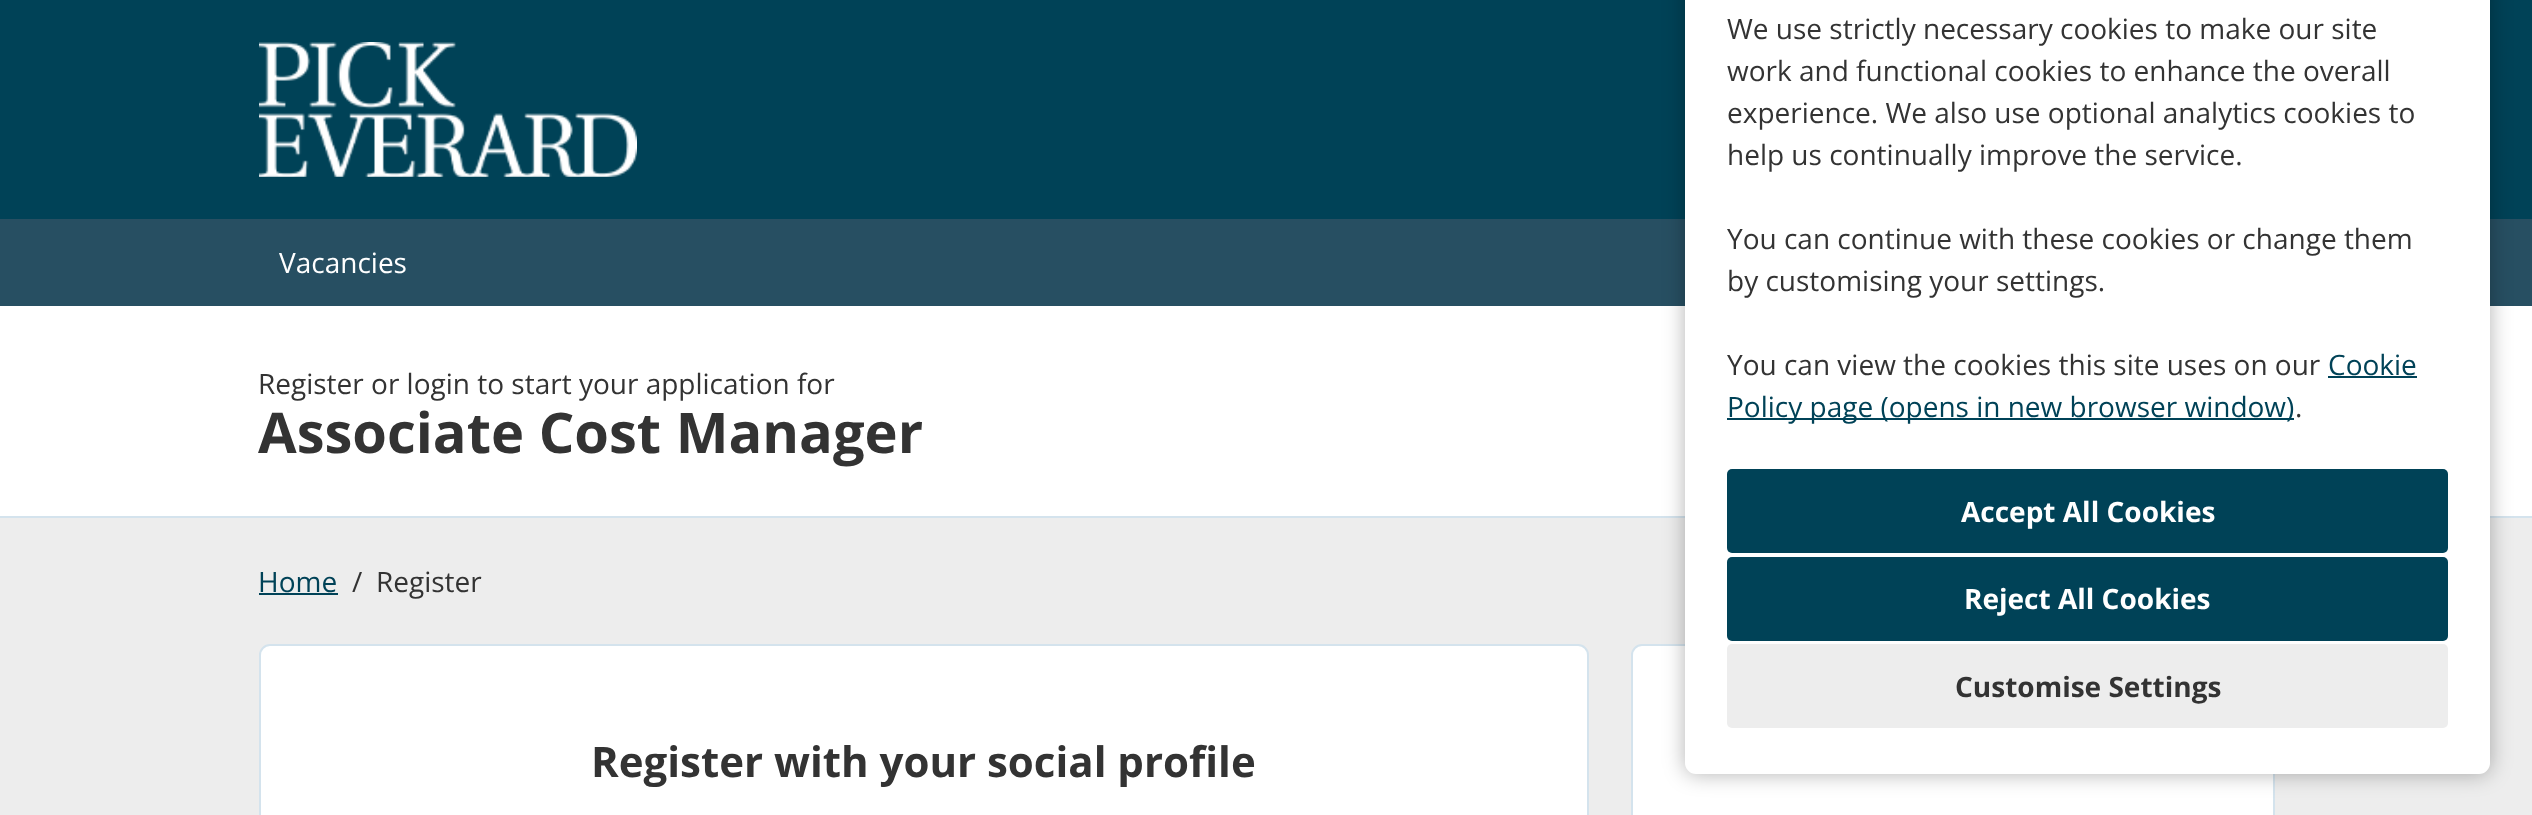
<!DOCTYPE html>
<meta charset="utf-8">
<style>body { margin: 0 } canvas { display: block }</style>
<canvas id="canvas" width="2532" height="815"></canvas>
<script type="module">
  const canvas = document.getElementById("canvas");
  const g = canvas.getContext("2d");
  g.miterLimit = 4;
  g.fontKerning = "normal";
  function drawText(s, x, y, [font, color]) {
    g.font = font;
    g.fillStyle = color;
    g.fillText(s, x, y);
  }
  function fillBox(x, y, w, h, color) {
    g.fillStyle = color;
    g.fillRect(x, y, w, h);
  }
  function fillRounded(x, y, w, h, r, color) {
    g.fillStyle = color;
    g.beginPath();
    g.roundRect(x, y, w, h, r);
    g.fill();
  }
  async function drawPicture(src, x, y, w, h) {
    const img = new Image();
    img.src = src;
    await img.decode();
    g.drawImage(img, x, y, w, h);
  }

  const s1 = ["28px Open Sans", "#FFFFFF"];
  const s2 = ["28px Open Sans", "#333333"];
  const s3 = ["bold 56px Open Sans", "#333333"];
  const s4 = ["28px Open Sans", "#004257"];
  const s5 = ["bold 42px Open Sans", "#333333"];
  const s6 = ["bold 28px Open Sans", "#FFFFFF"];
  const s7 = ["bold 28px Open Sans", "#333333"];

  fillBox(0, 0, 2532, 815, "#EDEDED");
  fillBox(0, 0, 2532, 219, "#004257");
  await drawPicture("pic1.png", 259, 42, 378, 135);
  fillBox(0, 219, 2532, 87, "#274F62");
  drawText("Vacancies", 279, 273, s1);
  fillBox(0, 306, 2532, 210, "#FFFFFF");
  fillBox(0, 516, 2532, 2, "#D4E3ED");
  drawText("Register or login to start your application for", 258, 394, s2);
  drawText("Associate Cost Manager", 258, 453, s3);
  drawText("Home", 258, 592, s4);
  fillBox(259, 593, 79, 2, "#004257");
  drawText("/", 352, 592, s2);
  drawText("Register", 376, 592, s2);
  g.fillStyle = "#FFFFFF";
  g.beginPath();
  g.roundRect(260, 645, 1328, 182, 10);
  g.fill();
  g.strokeStyle = "#D4E3ED";
  g.lineWidth = 2;
  g.stroke();
  drawText("Register with your social profile", 591, 777, s5);
  g.fillStyle = "#FFFFFF";
  g.beginPath();
  g.roundRect(1632, 645, 642, 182, 10);
  g.fill();
  g.stroke();
  g.fillStyle = "rgba(0, 0, 0, 0.3)";
  g.filter = "blur(10.5px)";
  g.beginPath();
  g.roundRect(1685, -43, 805, 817, 11);
  g.fill();
  g.filter = "none";
  fillRounded(1685, -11, 805, 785, 11, "#FFFFFF");
  drawText("We use strictly necessary cookies to make our site", 1727, 39, s2);
  drawText("work and functional cookies to enhance the overall", 1727, 81, s2);
  drawText("experience. We also use optional analytics cookies to", 1727, 123, s2);
  drawText("help us continually improve the service.", 1727, 165, s2);
  drawText("You can continue with these cookies or change them", 1727, 249, s2);
  drawText("by customising your settings.", 1727, 291, s2);
  drawText("You can view the cookies this site uses on our", 1727, 375, s2);
  drawText("Cookie", 2328, 375, s4);
  fillBox(2328, 376, 89, 2, "#004257");
  fillBox(1727, 418, 567, 2, "#004257");
  drawText("Policy page (opens in new browser window)", 1727, 417, s4);
  drawText(".", 2295, 417, s2);
  fillRounded(1727, 469, 721, 84, 5, "#004257");
  drawText("Accept All Cookies", 1961, 522, s6);
  fillRounded(1727, 557, 721, 84, 5, "#004257");
  drawText("Reject All Cookies", 1964, 609, s6);
  fillRounded(1727, 644, 721, 84, 5, "#EDEDED");
  drawText("Customise Settings", 1955, 697, s7);
</script>
